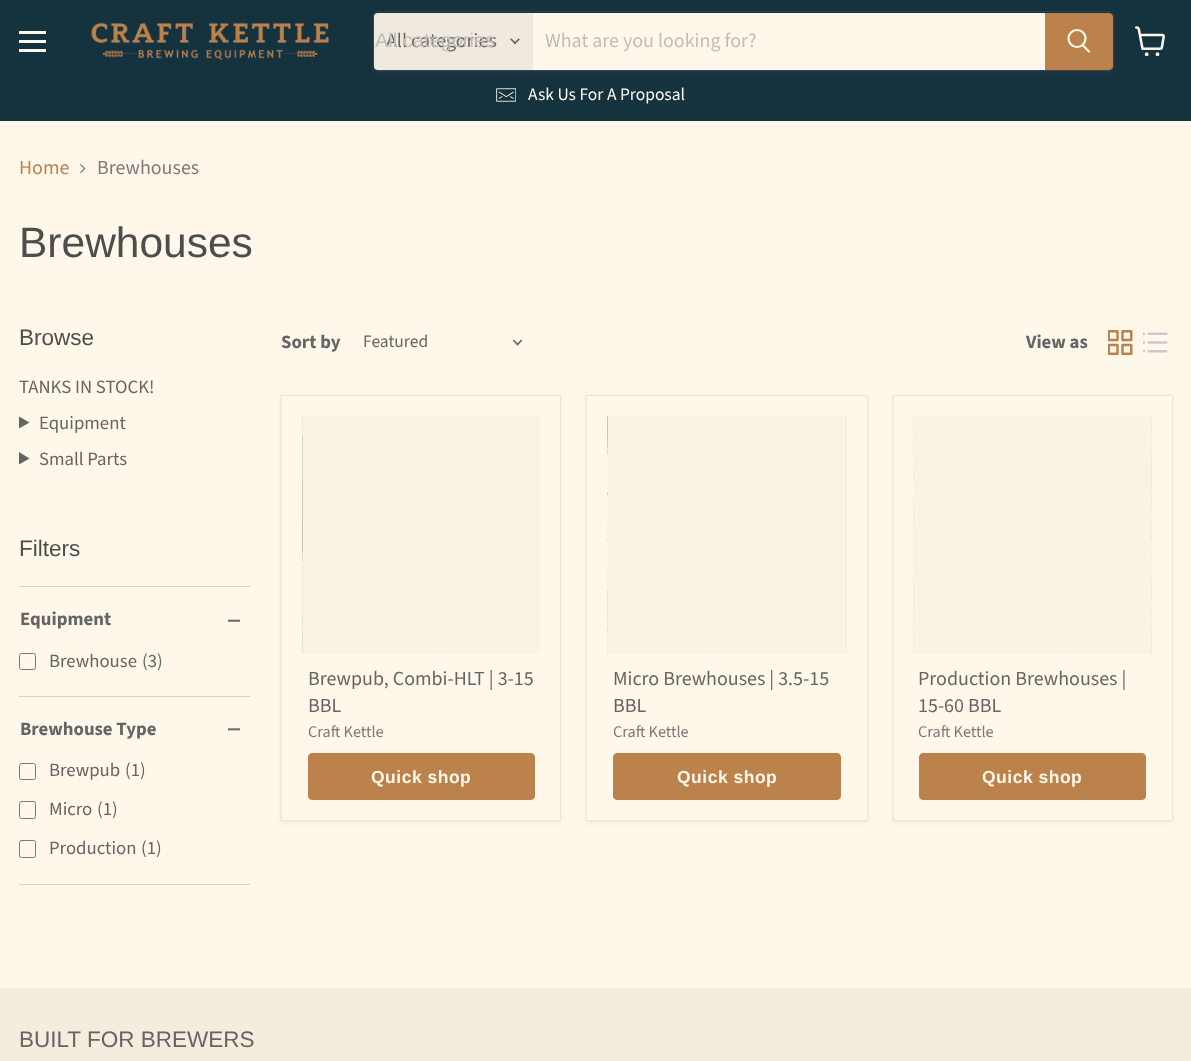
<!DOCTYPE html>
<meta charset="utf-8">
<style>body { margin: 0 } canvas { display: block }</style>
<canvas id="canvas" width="1191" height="1061"></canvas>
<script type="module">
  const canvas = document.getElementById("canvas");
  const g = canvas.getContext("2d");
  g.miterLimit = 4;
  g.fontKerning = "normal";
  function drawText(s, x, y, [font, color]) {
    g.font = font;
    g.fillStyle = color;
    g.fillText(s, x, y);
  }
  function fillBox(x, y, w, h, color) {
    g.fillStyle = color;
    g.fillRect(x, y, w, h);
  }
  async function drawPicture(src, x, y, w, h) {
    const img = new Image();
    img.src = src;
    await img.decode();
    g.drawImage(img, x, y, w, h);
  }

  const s1 = ["20px Source Sans Pro", "#656565"];
  const s2 = ["20px Liberation Sans", "#C1BDB5"];
  const s3 = ["20px Source Sans Pro", "#C1BDB5"];
  const s4 = ["17.5px Source Sans Pro", "#FFF7EA"];
  const s5 = ["20px Source Sans Pro", "#BB834B"];
  const s6 = ["20px Source Sans Pro", "#7C7A7A"];
  const s7 = ["42.5px Liberation Sans", "#4D4D4D"];
  const s8 = ["22.5px Liberation Sans", "#4D4D4D"];
  const s9 = ["18.75px Source Sans Pro", "#656565"];
  const s10 = ["bold 18.75px Source Sans Pro", "#656565"];
  const s11 = ["17.5px Source Sans Pro", "#656565"];
  const s12 = ["16.25px Source Sans Pro", "#7C7A7A"];
  const s13 = ["bold 17.5px Liberation Sans", "#FFF7EA"];
  const s14 = ["22.5px Liberation Sans", "#656565"];

  fillBox(0, 0, 1191, 1061, "#FFF8EA");
  fillBox(0, 0, 1191, 121, "#15323F");
  fillBox(19, 31, 27, 3, "#FFF7EA");
  fillBox(19, 40, 27, 3, "#FFF7EA");
  fillBox(19, 49, 27, 3, "#FFF7EA");
  await drawPicture("pic1.png", 91, 22, 238, 38);
  g.fillStyle = "rgba(128, 124, 117, 0.11)";
  g.filter = "blur(2px)";
  g.beginPath();
  g.roundRect(373, 14, 741, 60, 5);
  g.fill();
  g.filter = "none";
  g.beginPath();
  g.roundRect(373.5, 11.5, 740, 59, 4.5);
  g.strokeStyle = "rgba(128, 124, 117, 0.2)";
  g.stroke();
  g.fillStyle = "#F0E9DD";
  g.beginPath();
  g.roundRect(374, 13, 159, 57, [4, 0, 0, 4]);
  g.fill();
  drawText("All categories", 386, 47, s1);
  drawText("All categories", 375, 47, s2);
  await drawPicture("pic2.png", 510, 38, 10, 7);
  fillBox(533, 13, 512, 57, "#FFF7EA");
  drawText("What are you looking for?", 545, 47, s3);
  g.fillStyle = "#BB834B";
  g.beginPath();
  g.roundRect(1045.5, 13.5, 67, 56, [0, 3.5, 3.5, 0]);
  g.fill();
  g.strokeStyle = "#BB834B";
  g.stroke();
  g.beginPath();
  g.moveTo(1089, 51.5);
  g.lineTo(1083, 45.5);
  g.strokeStyle = "#FFF7EA";
  g.lineWidth = 2.2;
  g.lineCap = "round";
  g.stroke();
  g.beginPath();
  g.arc(1077, 38.5, 8.5, 0, Math.PI * 2);
  g.stroke();
  await drawPicture("pic3.png", 496, 88, 20, 14);
  drawText("Ask Us For A Proposal", 528, 100, s4);
  await drawPicture("pic4.png", 1135, 26, 30, 30);
  drawText("Home", 19, 174, s5);
  await drawPicture("pic5.png", 80, 164, 6, 9);
  drawText("Brewhouses", 97, 174, s6);
  drawText("Brewhouses", 19, 257, s7);
  drawText("Browse", 19, 345, s8);
  drawText("TANKS IN STOCK!", 19, 393, s9);
  g.beginPath();
  g.moveTo(19, 416.5);
  g.lineTo(29.5, 422.5);
  g.lineTo(19, 428.5);
  g.closePath();
  g.fill();
  drawText("Equipment", 39, 429, s9);
  g.beginPath();
  g.moveTo(19, 452);
  g.lineTo(29.5, 458.5);
  g.lineTo(19, 464.5);
  g.closePath();
  g.fill();
  drawText("Small Parts", 39, 465, s9);
  drawText("Filters", 19, 556, s8);
  fillBox(19, 586, 231, 1, "#D9D3C7");
  drawText("Equipment", 20, 625, s10);
  await drawPicture("pic6.png", 228, 619, 12, 3);
  g.beginPath();
  g.roundRect(19.5, 653.5, 16, 16, 2);
  g.strokeStyle = "#7C7A7A";
  g.lineWidth = 1;
  g.stroke();
  drawText("Brewhouse", 49, 667, s9);
  drawText("(3)", 142, 667, s9);
  fillBox(19, 696, 231, 1, "#D9D3C7");
  fillBox(19, 884, 231, 1, "#D9D3C7");
  drawText("Brewhouse Type", 20, 735, s10);
  await drawPicture("pic7.png", 228, 728, 12, 3);
  g.beginPath();
  g.roundRect(19.5, 763.5, 16, 16, 2);
  g.stroke();
  drawText("Brewpub", 49, 776, s9);
  drawText("(1)", 125, 776, s9);
  g.beginPath();
  g.roundRect(19.5, 801.5, 16, 17, 2);
  g.stroke();
  drawText("Micro", 49, 815, s9);
  drawText("(1)", 97, 815, s9);
  g.beginPath();
  g.roundRect(19.5, 840.5, 16, 17, 2);
  g.stroke();
  drawText("Production", 49, 854, s9);
  drawText("(1)", 141, 854, s9);
  drawText("Sort by", 281, 348, s10);
  drawText("Featured", 363, 347, s11);
  await drawPicture("pic8.png", 513, 339, 10, 7);
  drawText("View as", 1026, 348, s10);
  await drawPicture("pic9.png", 1108, 330, 25, 25);
  await drawPicture("pic10.png", 1143, 332, 25, 21);
  g.fillStyle = "rgba(128, 124, 117, 0.11)";
  g.filter = "blur(2.5px)";
  g.beginPath();
  g.rect(281, 396, 280, 427);
  g.fill();
  g.filter = "none";
  g.fillStyle = "#FFF8EA";
  g.beginPath();
  g.rect(281.5, 395.5, 279, 425);
  g.fill();
  g.strokeStyle = "#EBE4D7";
  g.stroke();
  await drawPicture("pic11.png", 302, 416, 1, 238);
  fillBox(303, 416, 237, 238, "#F9F2E5");
  drawText("Brewpub, Combi-HLT | 3-15", 308, 685, s1);
  drawText("BBL", 308, 712, s1);
  drawText("Craft Kettle", 308, 737, s12);
  g.fillStyle = "#BB834B";
  g.beginPath();
  g.roundRect(308.5, 753.5, 226, 46, 3.5);
  g.fill();
  g.strokeStyle = "#BB834B";
  g.stroke();
  g.letterSpacing = "0.5px";
  drawText("Quick shop", 371, 783, s13);
  g.fillStyle = "rgba(128, 124, 117, 0.11)";
  g.filter = "blur(2.5px)";
  g.beginPath();
  g.rect(586, 396, 282, 427);
  g.fill();
  g.filter = "none";
  g.fillStyle = "#FFF8EA";
  g.beginPath();
  g.rect(586.5, 395.5, 281, 425);
  g.fill();
  g.strokeStyle = "#EBE4D7";
  g.stroke();
  await drawPicture("pic12.png", 607, 416, 240, 238);
  fillBox(608, 416, 238, 238, "#F9F2E5");
  g.letterSpacing = "0px";
  drawText("Micro Brewhouses | 3.5-15", 613, 685, s1);
  drawText("BBL", 613, 712, s1);
  drawText("Craft Kettle", 613, 737, s12);
  g.fillStyle = "#BB834B";
  g.beginPath();
  g.roundRect(613.5, 753.5, 227, 46, 3.5);
  g.fill();
  g.strokeStyle = "#BB834B";
  g.stroke();
  g.letterSpacing = "0.5px";
  drawText("Quick shop", 677, 783, s13);
  g.fillStyle = "rgba(128, 124, 117, 0.11)";
  g.filter = "blur(2.5px)";
  g.beginPath();
  g.rect(893, 396, 280, 427);
  g.fill();
  g.filter = "none";
  g.fillStyle = "#FFF8EA";
  g.beginPath();
  g.rect(893.5, 395.5, 279, 425);
  g.fill();
  g.strokeStyle = "#EBE4D7";
  g.stroke();
  await drawPicture("pic13.png", 913, 416, 239, 238);
  fillBox(914, 416, 237, 238, "#F9F2E5");
  g.letterSpacing = "0px";
  drawText("Production Brewhouses |", 918, 685, s1);
  drawText("15-60 BBL", 918, 712, s1);
  drawText("Craft Kettle", 918, 737, s12);
  g.fillStyle = "#BB834B";
  g.beginPath();
  g.roundRect(919.5, 753.5, 226, 46, 3.5);
  g.fill();
  g.strokeStyle = "#BB834B";
  g.stroke();
  g.letterSpacing = "0.5px";
  drawText("Quick shop", 982, 783, s13);
  fillBox(0, 988, 1191, 73, "#F4ECDC");
  g.letterSpacing = "0px";
  drawText("BUILT FOR BREWERS", 19, 1047, s14);
</script>
